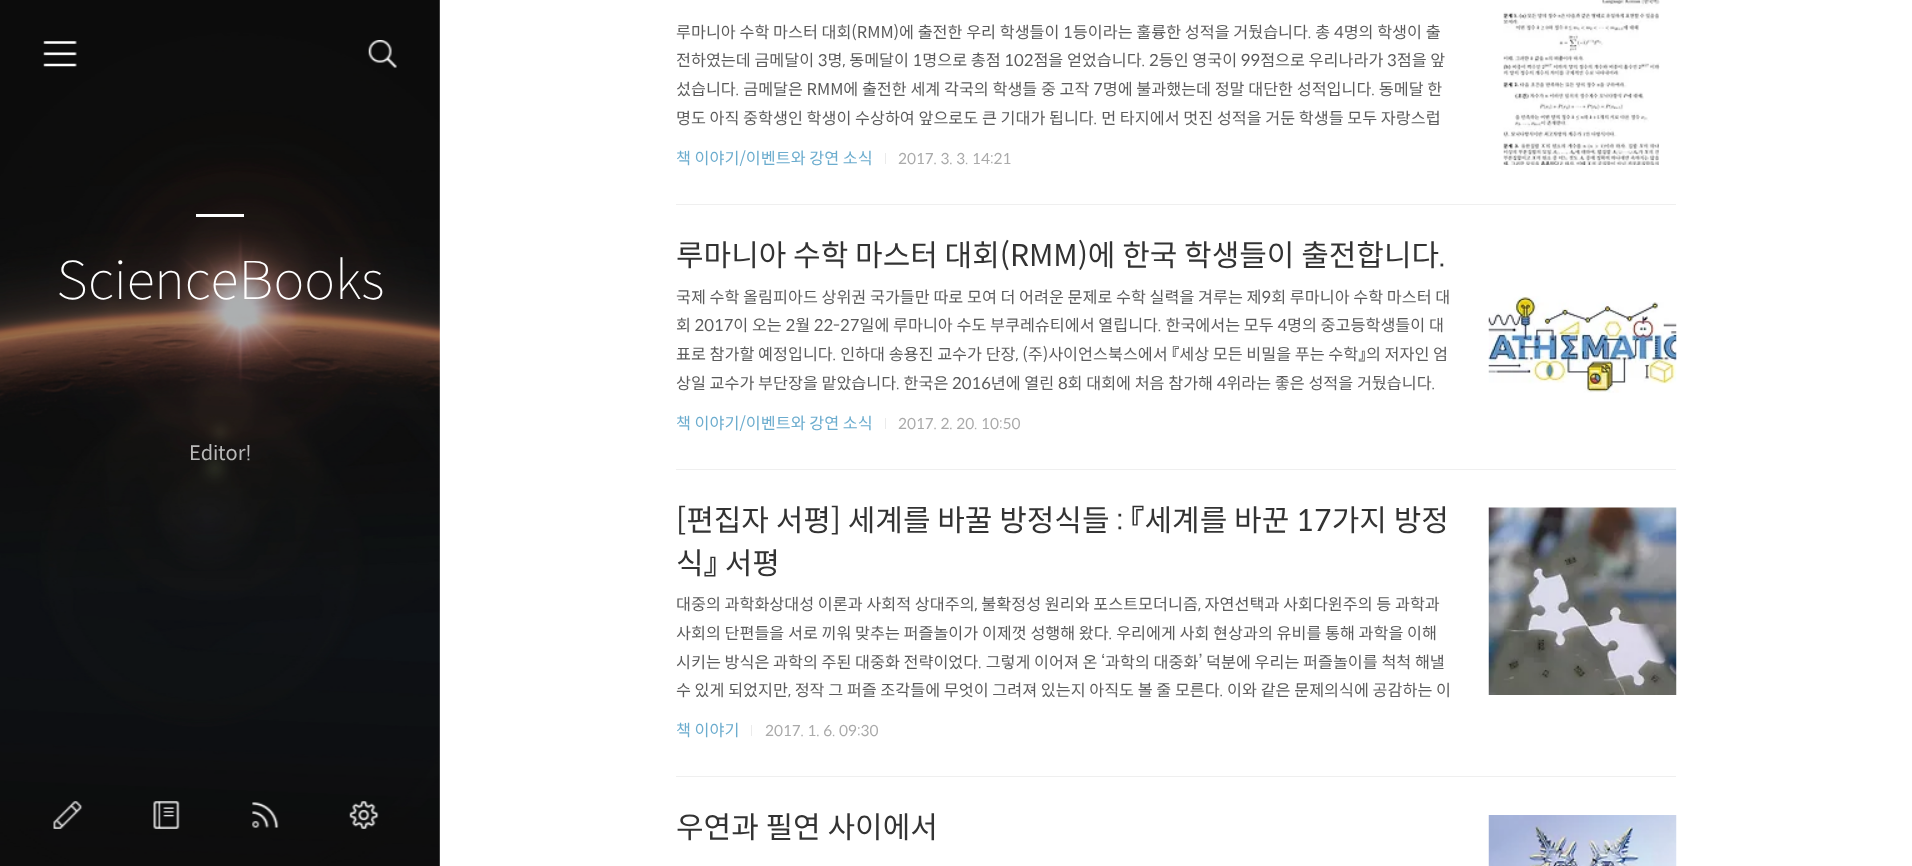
<!DOCTYPE html>
<meta charset="utf-8">
<style>body { margin: 0 } canvas { display: block }</style>
<canvas id="canvas" width="1912" height="866"></canvas>
<script type="module">
  const canvas = document.getElementById("canvas");
  const g = canvas.getContext("2d");
  g.miterLimit = 4;
  g.fontKerning = "normal";
  function drawText(s, x, y, [font, color]) {
    g.font = font;
    g.fillStyle = color;
    g.fillText(s, x, y);
  }
  function fillBox(x, y, w, h, color) {
    g.fillStyle = color;
    g.fillRect(x, y, w, h);
  }
  async function drawPicture(src, x, y, w, h) {
    const img = new Image();
    img.src = src;
    await img.decode();
    g.drawImage(img, x, y, w, h);
  }

  const s1 = ["100 52.5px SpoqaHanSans", "#FFFFFF"];
  const s2 = ["20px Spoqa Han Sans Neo", "#B9B9B8"];
  const s3 = ["16.25px Spoqa Han Sans Neo", "#5C5C5C"];
  const s4 = ["16.25px Spoqa Han Sans Neo", "#6BACCE"];
  const s5 = ["15px Spoqa Han Sans Neo", "#AAAAAA"];
  const s6 = ["30px Spoqa Han Sans Neo", "#333333"];

  fillBox(0, 0, 1912, 866, "#FFFFFF");
  await drawPicture("pic3.png", 0, 0, 440, 866);
  await drawPicture("pic1.png", 43, 41, 34, 26);
  await drawPicture("pic2.png", 368, 40, 29, 28);
  fillBox(196, 214, 48, 3, "#FFFFFF");
  drawText("ScienceBooks", 56, 299, s1);
  drawText("Editor!", 189, 460, s2);
  await drawPicture("pic4.png", 53, 801, 30, 28);
  await drawPicture("pic5.png", 153, 801, 27, 28);
  await drawPicture("pic6.png", 252, 802, 27, 26);
  await drawPicture("pic7.png", 349, 801, 30, 28);
  fillBox(676, 204, 1000, 1, "#EFEFEF");
  drawText("루마니아 수학 마스터 대회(RMM)에 출전한 우리 학생들이 1등이라는 훌륭한 성적을 거뒀습니다. 총 4명의 학생이 출", 676, 38, s3);
  drawText("전하였는데 금메달이 3명, 동메달이 1명으로 총점 102점을 얻었습니다. 2등인 영국이 99점으로 우리나라가 3점을 앞", 676, 66, s3);
  drawText("섰습니다. 금메달은 RMM에 출전한 세계 각국의 학생들 중 고작 7명에 불과했는데 정말 대단한 성적입니다. 동메달 한", 676, 95, s3);
  drawText("명도 아직 중학생인 학생이 수상하여 앞으로도 큰 기대가 됩니다. 먼 타지에서 멋진 성적을 거둔 학생들 모두 자랑스럽", 676, 124, s3);
  await drawPicture("pic8.png", 1503, 0, 157, 165);
  drawText("책 이야기/이벤트와 강연 소식", 676, 164, s4);
  fillBox(885, 153, 1, 11, "#EBEBEB");
  drawText("2017. 3. 3. 14:21", 898, 164, s5);
  fillBox(676, 469, 1000, 1, "#EFEFEF");
  drawText("루마니아 수학 마스터 대회(RMM)에 한국 학생들이 출전합니다.", 676, 266, s6);
  drawText("국제 수학 올림피아드 상위권 국가들만 따로 모여 더 어려운 문제로 수학 실력을 겨루는 제9회 루마니아 수학 마스터 대", 676, 303, s3);
  drawText("회 2017이 오는 2월 22-27일에 루마니아 수도 부쿠레슈티에서 열립니다. 한국에서는 모두 4명의 중고등학생들이 대", 676, 331, s3);
  drawText("표로 참가할 예정입니다. 인하대 송용진 교수가 단장, (주)사이언스북스에서 『세상 모든 비밀을 푸는 수학』의 저자인 엄", 676, 360, s3);
  drawText("상일 교수가 부단장을 맡았습니다. 한국은 2016년에 열린 8회 대회에 처음 참가해 4위라는 좋은 성적을 거뒀습니다.", 676, 389, s3);
  await drawPicture("pic9.png", 1488, 296, 189, 97);
  drawText("책 이야기/이벤트와 강연 소식", 676, 429, s4);
  fillBox(885, 418, 1, 11, "#EBEBEB");
  drawText("2017. 2. 20. 10:50", 898, 429, s5);
  fillBox(676, 776, 1000, 1, "#EFEFEF");
  drawText("[편집자 서평] 세계를 바꿀 방정식들 : 『세계를 바꾼 17가지 방정", 676, 531, s6);
  drawText("식』 서평", 676, 574, s6);
  drawText("대중의 과학화상대성 이론과 사회적 상대주의, 불확정성 원리와 포스트모더니즘, 자연선택과 사회다윈주의 등 과학과", 676, 610, s3);
  drawText("사회의 단편들을 서로 끼워 맞추는 퍼즐놀이가 이제껏 성행해 왔다. 우리에게 사회 현상과의 유비를 통해 과학을 이해", 676, 639, s3);
  drawText("시키는 방식은 과학의 주된 대중화 전략이었다. 그렇게 이어져 온 ‘과학의 대중화’ 덕분에 우리는 퍼즐놀이를 척척 해낼", 676, 668, s3);
  drawText("수 있게 되었지만, 정작 그 퍼즐 조각들에 무엇이 그려져 있는지 아직도 볼 줄 모른다. 이와 같은 문제의식에 공감하는 이", 676, 696, s3);
  await drawPicture("pic10.png", 1488, 507, 189, 188);
  drawText("책 이야기", 676, 736, s4);
  fillBox(751, 725, 1, 11, "#EBEBEB");
  drawText("2017. 1. 6. 09:30", 765, 736, s5);
  drawText("우연과 필연 사이에서", 676, 838, s6);
  await drawPicture("pic11.png", 1488, 815, 189, 51);
</script>
